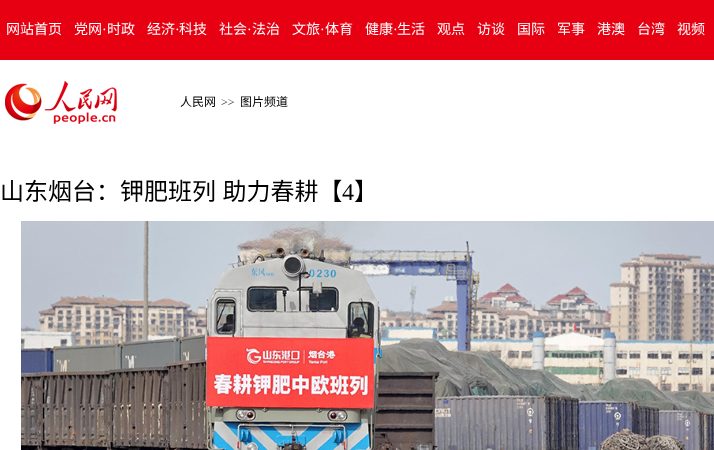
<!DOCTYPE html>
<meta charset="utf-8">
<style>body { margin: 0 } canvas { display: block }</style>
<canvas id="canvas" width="714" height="450"></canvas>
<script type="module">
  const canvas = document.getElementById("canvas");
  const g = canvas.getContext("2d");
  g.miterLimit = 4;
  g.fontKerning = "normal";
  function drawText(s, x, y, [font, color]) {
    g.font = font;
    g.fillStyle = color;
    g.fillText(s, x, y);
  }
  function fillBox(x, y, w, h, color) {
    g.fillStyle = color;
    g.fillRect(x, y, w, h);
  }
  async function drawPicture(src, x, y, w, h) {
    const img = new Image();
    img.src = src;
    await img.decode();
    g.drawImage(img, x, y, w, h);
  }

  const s1 = ["14px Noto Sans CJK SC", "#FFFFFF"];
  const s2 = ["14px Liberation Serif", "#FFFFFF"];
  const s3 = ["12px Noto Sans CJK SC", "#000000"];
  const s4 = ["12px Liberation Serif", "#333333"];
  const s5 = ["24px Noto Sans CJK SC", "#000000"];
  const s6 = ["24px Liberation Serif", "#000000"];

  fillBox(0, 0, 714, 450, "#FFFFFF");
  fillBox(0, 0, 714, 60, "#E60012");
  drawText("网站首页", 6, 34, s1);
  drawText("党网", 74, 34, s1);
  drawText("·", 102, 34, s2);
  drawText("时政", 107, 34, s1);
  drawText("经济", 147, 34, s1);
  drawText("·", 175, 34, s2);
  drawText("科技", 179, 34, s1);
  drawText("社会", 219, 34, s1);
  drawText("·", 247, 34, s2);
  drawText("法治", 252, 34, s1);
  drawText("文旅", 292, 34, s1);
  drawText("·", 320, 34, s2);
  drawText("体育", 325, 34, s1);
  drawText("健康", 365, 34, s1);
  drawText("·", 393, 34, s2);
  drawText("生活", 397, 34, s1);
  drawText("观点", 437, 34, s1);
  drawText("访谈", 477, 34, s1);
  drawText("国际", 517, 34, s1);
  drawText("军事", 557, 34, s1);
  drawText("港澳", 597, 34, s1);
  drawText("台湾", 637, 34, s1);
  drawText("视频", 677, 34, s1);
  await drawPicture("pic1.png", 5, 81, 112, 43);
  drawText("人民网", 180, 106, s3);
  drawText(">>", 221, 106, s4);
  drawText("图片频道", 240, 106, s3);
  g.wordSpacing = "1px";
  drawText("山东烟台：钾肥班列 助力春耕【", 0, 200, s5);
  g.wordSpacing = "0px";
  drawText("4", 342, 200, s6);
  drawText("】", 354, 200, s5);
  await drawPicture("pic2.png", 21, 221, 693, 229);
</script>
